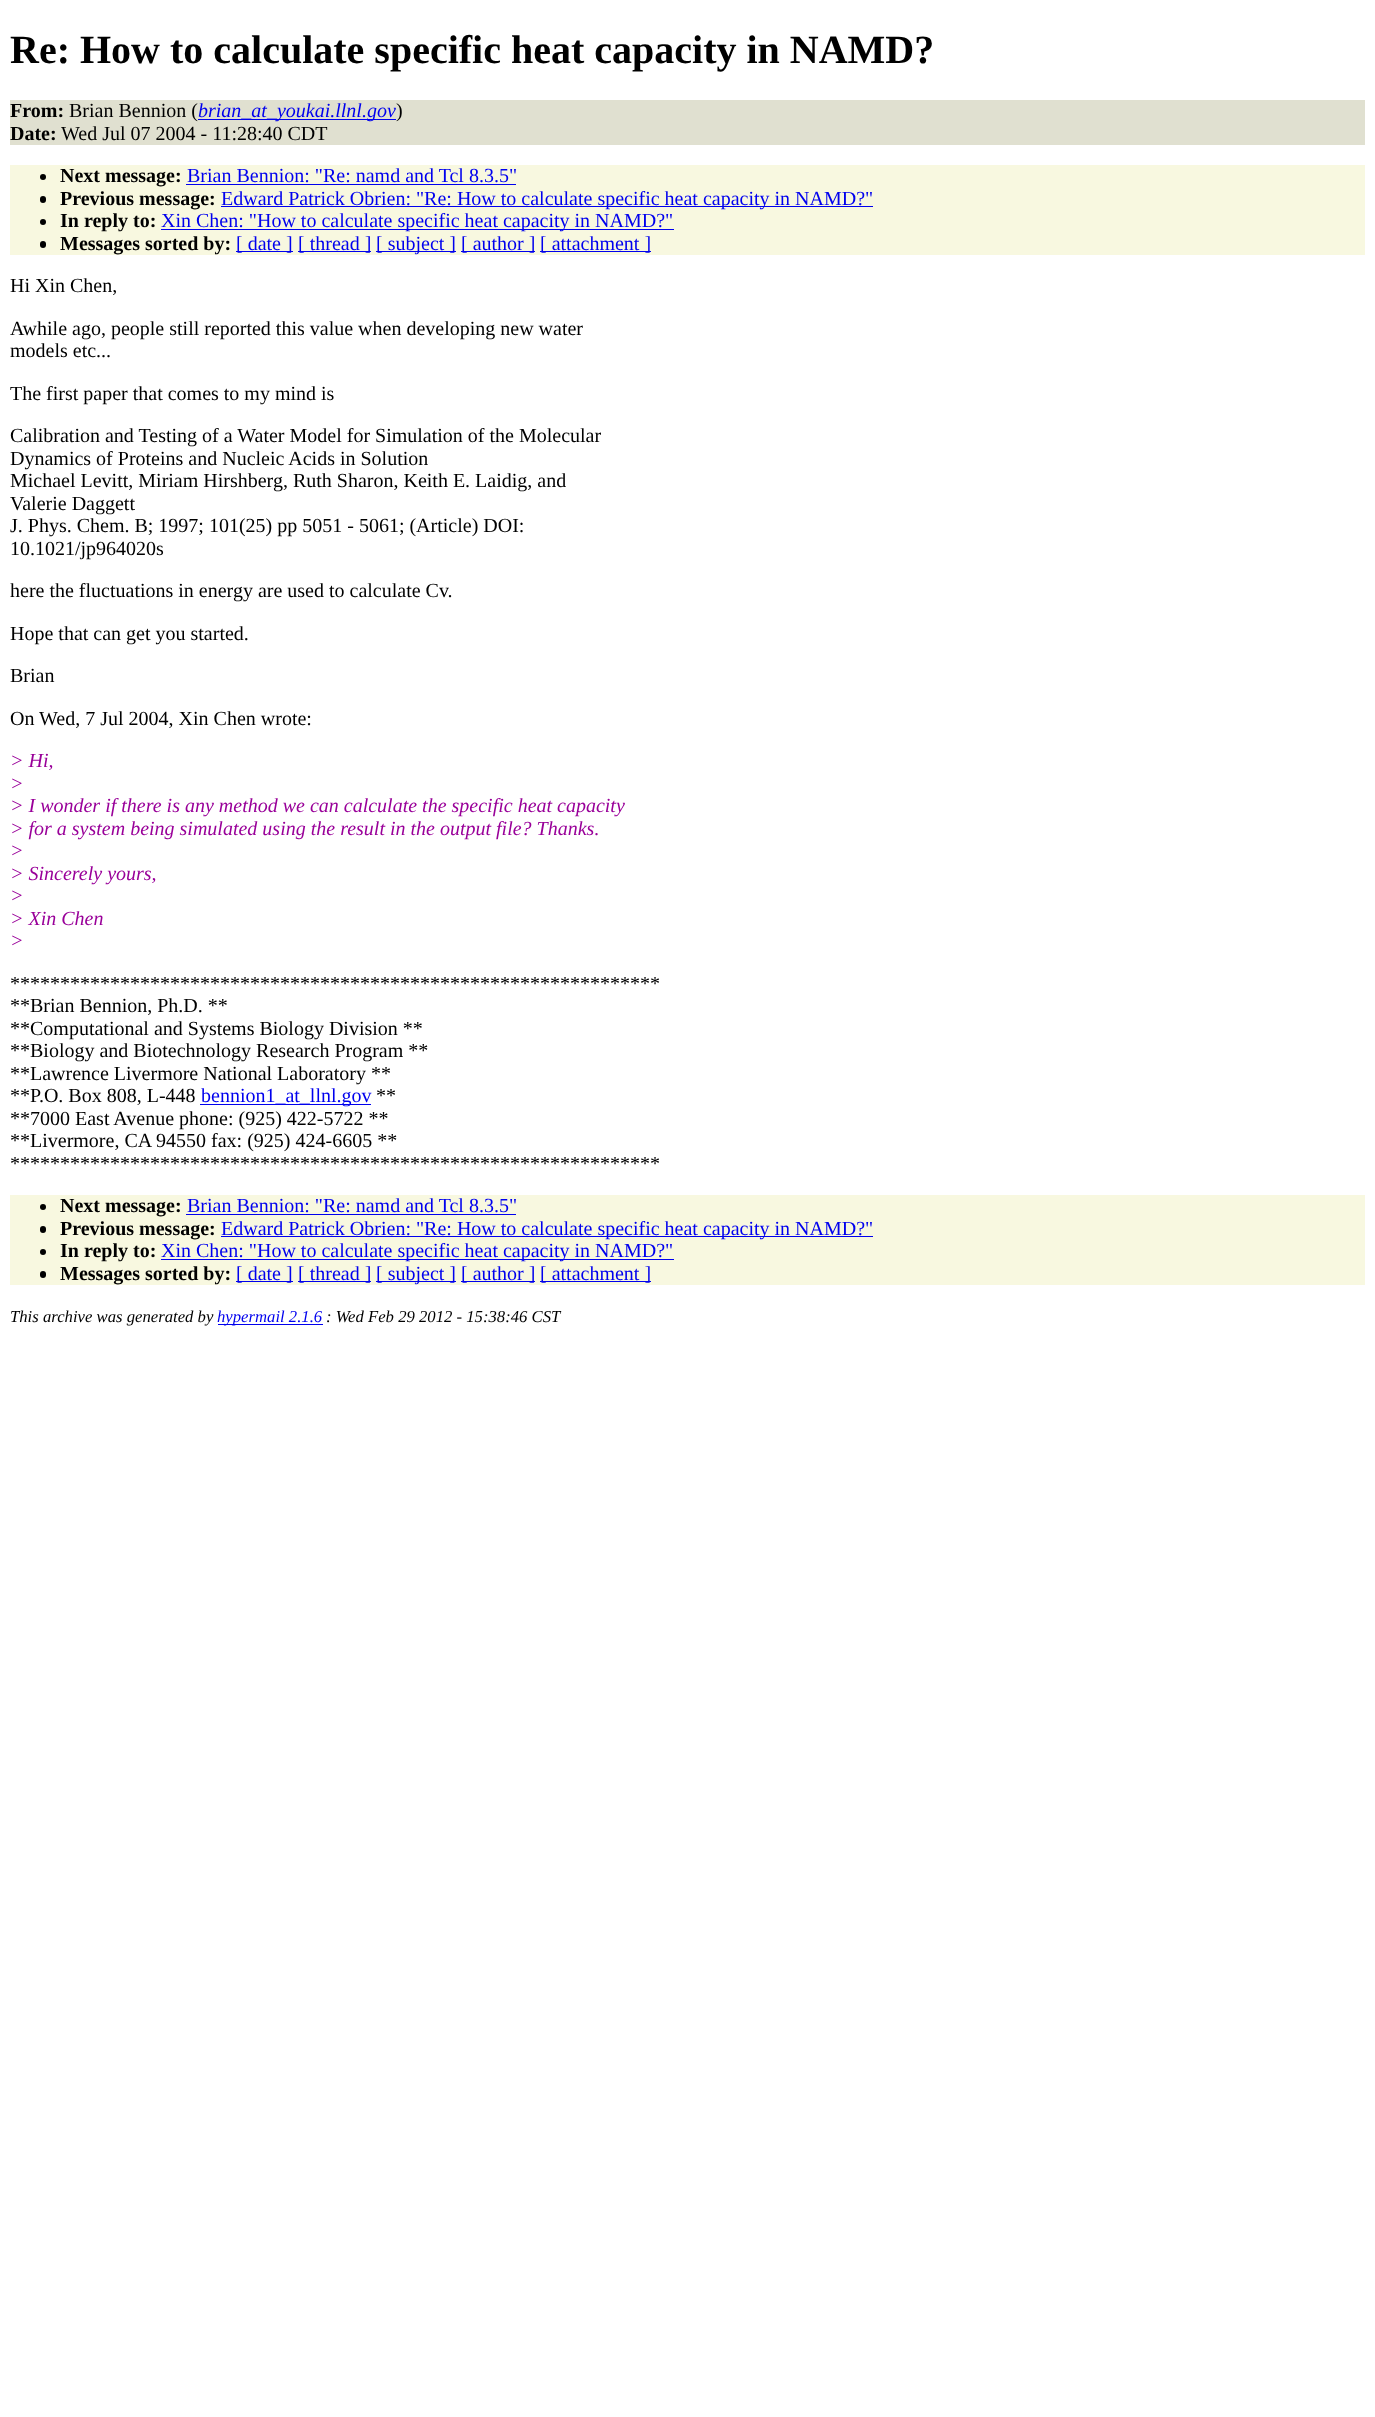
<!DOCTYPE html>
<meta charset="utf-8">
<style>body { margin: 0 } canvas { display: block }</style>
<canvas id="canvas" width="1375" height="2417"></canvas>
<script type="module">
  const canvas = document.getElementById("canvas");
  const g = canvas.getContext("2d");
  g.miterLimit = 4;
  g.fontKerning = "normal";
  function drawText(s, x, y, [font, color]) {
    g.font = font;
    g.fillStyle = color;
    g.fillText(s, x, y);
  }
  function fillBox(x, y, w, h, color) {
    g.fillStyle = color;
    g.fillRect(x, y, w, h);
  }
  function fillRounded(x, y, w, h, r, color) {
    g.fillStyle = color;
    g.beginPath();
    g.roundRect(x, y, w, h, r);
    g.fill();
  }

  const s1 = ["bold 40px Liberation Serif", "#000000"];
  const s2 = ["bold 20px Liberation Serif", "#000000"];
  const s3 = ["20px Liberation Serif", "#000000"];
  const s4 = ["italic 20px Liberation Serif", "#0000EE"];
  const s5 = ["20px Liberation Serif", "#0000EE"];
  const s6 = ["italic 20px Liberation Serif", "#990099"];
  const s7 = ["italic 16.7px Liberation Serif", "#000000"];
  const s8 = ["italic 16.7px Liberation Serif", "#0000EE"];

  fillBox(0, 0, 1375, 2417, "#FFFFFF");
  drawText("Re: How to calculate specific heat capacity in NAMD?", 10, 63, s1);
  fillBox(10, 100, 1355, 45, "#E0E0D0");
  drawText("From:", 10, 117, s2);
  drawText("Brian Bennion (", 69, 117, s3);
  fillBox(198, 119, 198, 1, "#0000EE");
  drawText("brian_at_youkai.llnl.gov", 198, 117, s4);
  drawText(")", 396, 117, s3);
  drawText("Date:", 10, 140, s2);
  drawText("Wed Jul 07 2004 - 11:28:40 CDT", 61, 140, s3);
  fillBox(10, 165, 1355, 90, "#F8F8E0");
  g.fillStyle = "#000000";
  g.beginPath();
  g.arc(43, 177, 3, 0, Math.PI * 2);
  g.fill();
  drawText("Next message:", 60, 182, s2);
  drawText("Brian Bennion: \"Re: namd and Tcl 8.3.5\"", 187, 182, s5);
  fillBox(186, 184, 330, 1, "#0000EE");
  fillRounded(40, 196, 6, 7, 3, "#000000");
  drawText("Previous message:", 60, 205, s2);
  fillBox(221, 206, 652, 1, "#0000EE");
  drawText("Edward Patrick Obrien: \"Re: How to calculate specific heat capacity in NAMD?\"", 221, 205, s5);
  g.fillStyle = "#000000";
  g.beginPath();
  g.arc(43, 222, 3, 0, Math.PI * 2);
  g.fill();
  drawText("In reply to:", 60, 227, s2);
  fillBox(161, 229, 513, 1, "#0000EE");
  drawText("Xin Chen: \"How to calculate specific heat capacity in NAMD?\"", 161, 227, s5);
  fillRounded(40, 241, 6, 7, 3, "#000000");
  drawText("Messages sorted by:", 60, 250, s2);
  fillBox(236, 251, 57, 1, "#0000EE");
  drawText("[ date ]", 236, 250, s5);
  fillBox(298, 251, 73, 1, "#0000EE");
  drawText("[ thread ]", 298, 250, s5);
  fillBox(376, 251, 80, 1, "#0000EE");
  drawText("[ subject ]", 376, 250, s5);
  fillBox(461, 251, 74, 1, "#0000EE");
  drawText("[ author ]", 461, 250, s5);
  fillBox(540, 251, 111, 1, "#0000EE");
  drawText("[ attachment ]", 540, 250, s5);
  drawText("Hi Xin Chen,", 10, 292, s3);
  drawText("Awhile ago, people still reported this value when developing new water", 10, 335, s3);
  drawText("models etc...", 10, 357, s3);
  drawText("The first paper that comes to my mind is", 10, 400, s3);
  drawText("Calibration and Testing of a Water Model for Simulation of the Molecular", 10, 442, s3);
  drawText("Dynamics of Proteins and Nucleic Acids in Solution", 10, 465, s3);
  drawText("Michael Levitt, Miriam Hirshberg, Ruth Sharon, Keith E. Laidig, and", 10, 487, s3);
  drawText("Valerie Daggett", 10, 510, s3);
  drawText("J. Phys. Chem. B; 1997; 101(25) pp 5051 - 5061; (Article) DOI:", 10, 532, s3);
  drawText("10.1021/jp964020s", 10, 555, s3);
  drawText("here the fluctuations in energy are used to calculate Cv.", 10, 597, s3);
  drawText("Hope that can get you started.", 10, 640, s3);
  drawText("Brian", 10, 682, s3);
  drawText("On Wed, 7 Jul 2004, Xin Chen wrote:", 10, 725, s3);
  drawText("> Hi,", 10, 767, s6);
  drawText(">", 10, 790, s6);
  drawText("> I wonder if there is any method we can calculate the specific heat capacity", 10, 812, s6);
  drawText("> for a system being simulated using the result in the output file? Thanks.", 10, 835, s6);
  drawText(">", 10, 857, s6);
  drawText("> Sincerely yours,", 10, 880, s6);
  drawText(">", 10, 902, s6);
  drawText("> Xin Chen", 10, 925, s6);
  drawText(">", 10, 947, s6);
  drawText("*****************************************************************", 10, 990, s3);
  drawText("**Brian Bennion, Ph.D. **", 10, 1012, s3);
  drawText("**Computational and Systems Biology Division **", 10, 1035, s3);
  drawText("**Biology and Biotechnology Research Program **", 10, 1057, s3);
  drawText("**Lawrence Livermore National Laboratory **", 10, 1080, s3);
  drawText("**P.O. Box 808, L-448", 10, 1102, s3);
  fillBox(200, 1104, 171, 1, "#0000EE");
  drawText("bennion1_at_llnl.gov", 201, 1102, s5);
  drawText("**", 376, 1102, s3);
  drawText("**7000 East Avenue phone: (925) 422-5722 **", 10, 1125, s3);
  drawText("**Livermore, CA 94550 fax: (925) 424-6605 **", 10, 1147, s3);
  drawText("*****************************************************************", 10, 1170, s3);
  fillBox(10, 1195, 1355, 90, "#F8F8E0");
  g.fillStyle = "#000000";
  g.beginPath();
  g.arc(43, 1207, 3, 0, Math.PI * 2);
  g.fill();
  drawText("Next message:", 60, 1212, s2);
  drawText("Brian Bennion: \"Re: namd and Tcl 8.3.5\"", 187, 1212, s5);
  fillBox(186, 1214, 330, 1, "#0000EE");
  fillRounded(40, 1226, 6, 7, 3, "#000000");
  drawText("Previous message:", 60, 1235, s2);
  fillBox(221, 1236, 652, 1, "#0000EE");
  drawText("Edward Patrick Obrien: \"Re: How to calculate specific heat capacity in NAMD?\"", 221, 1235, s5);
  g.fillStyle = "#000000";
  g.beginPath();
  g.arc(43, 1252, 3, 0, Math.PI * 2);
  g.fill();
  drawText("In reply to:", 60, 1257, s2);
  fillBox(161, 1259, 513, 1, "#0000EE");
  drawText("Xin Chen: \"How to calculate specific heat capacity in NAMD?\"", 161, 1257, s5);
  fillRounded(40, 1271, 6, 7, 3, "#000000");
  drawText("Messages sorted by:", 60, 1280, s2);
  fillBox(236, 1281, 57, 1, "#0000EE");
  drawText("[ date ]", 236, 1280, s5);
  fillBox(298, 1281, 73, 1, "#0000EE");
  drawText("[ thread ]", 298, 1280, s5);
  fillBox(376, 1281, 80, 1, "#0000EE");
  drawText("[ subject ]", 376, 1280, s5);
  fillBox(461, 1281, 74, 1, "#0000EE");
  drawText("[ author ]", 461, 1280, s5);
  fillBox(540, 1281, 111, 1, "#0000EE");
  drawText("[ attachment ]", 540, 1280, s5);
  drawText("This archive was generated by", 10, 1322, s7);
  fillBox(218, 1324, 105, 1, "#0000EE");
  drawText("hypermail 2.1.6", 217, 1322, s8);
  drawText(": Wed Feb 29 2012 - 15:38:46 CST", 326, 1322, s7);
</script>
